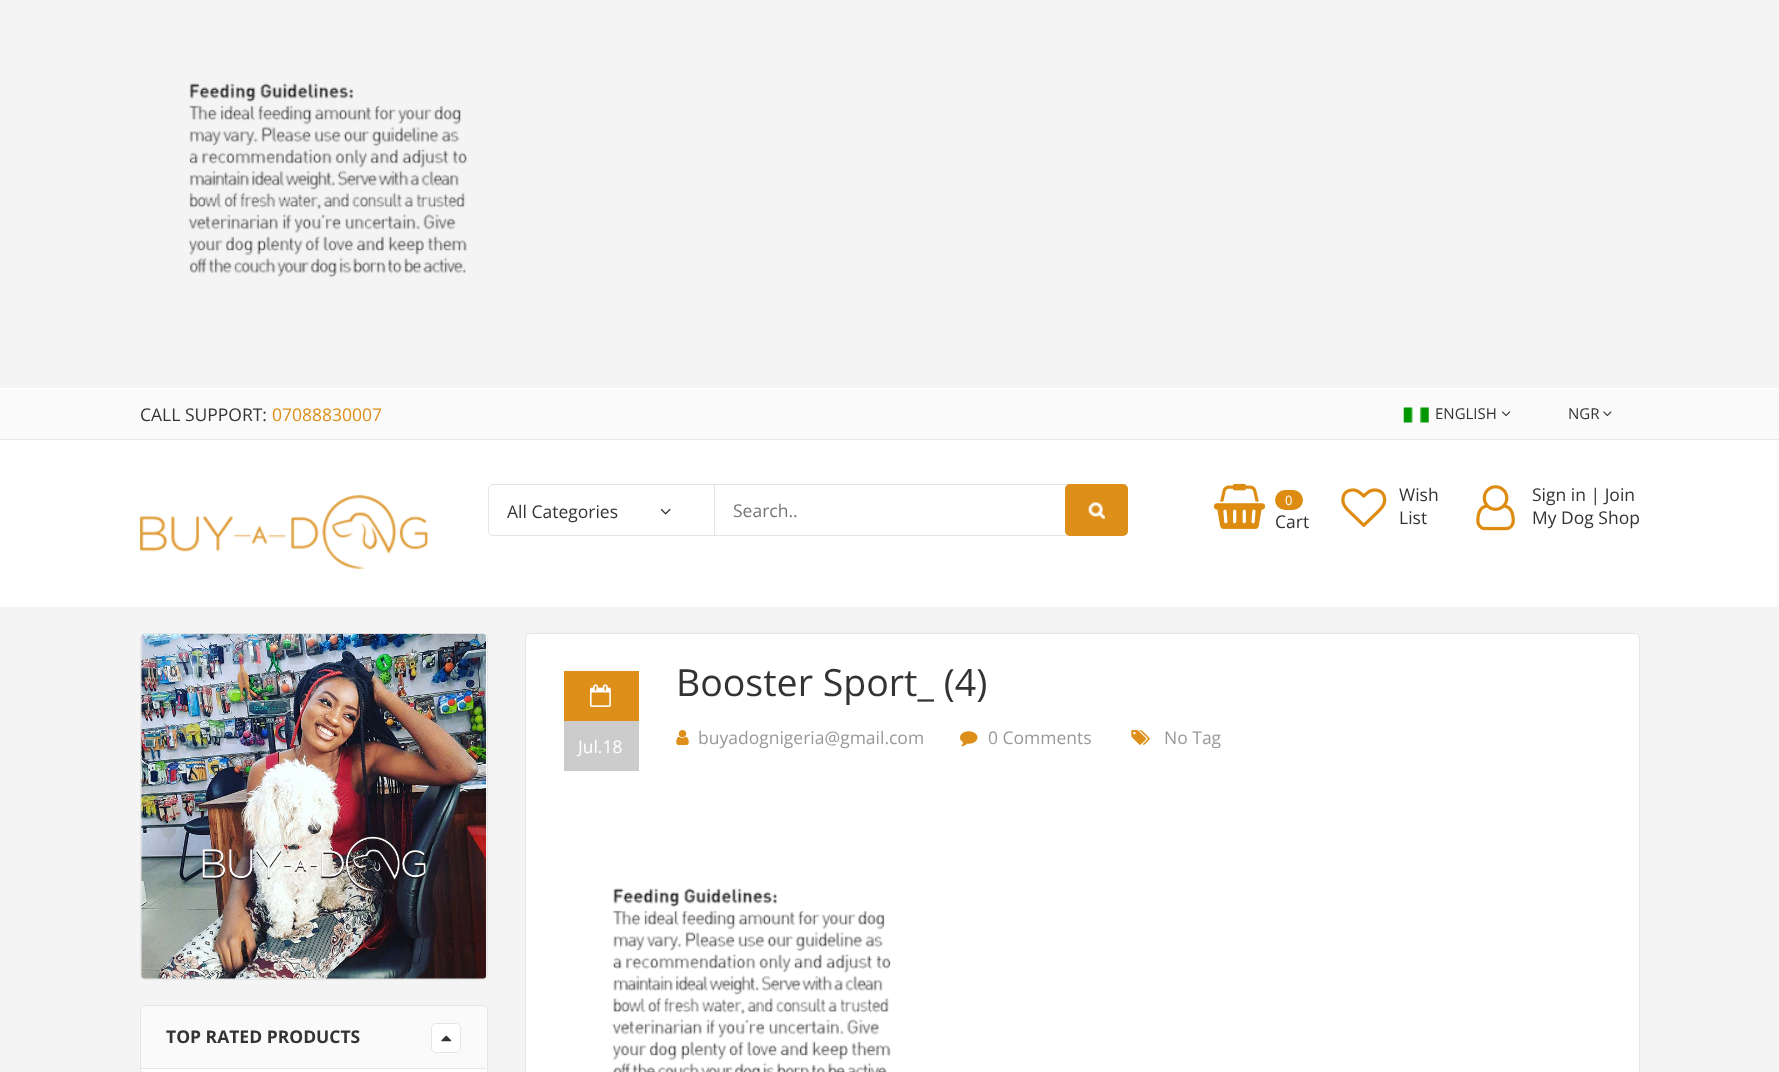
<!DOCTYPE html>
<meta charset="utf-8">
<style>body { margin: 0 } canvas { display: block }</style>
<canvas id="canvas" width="1779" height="1072"></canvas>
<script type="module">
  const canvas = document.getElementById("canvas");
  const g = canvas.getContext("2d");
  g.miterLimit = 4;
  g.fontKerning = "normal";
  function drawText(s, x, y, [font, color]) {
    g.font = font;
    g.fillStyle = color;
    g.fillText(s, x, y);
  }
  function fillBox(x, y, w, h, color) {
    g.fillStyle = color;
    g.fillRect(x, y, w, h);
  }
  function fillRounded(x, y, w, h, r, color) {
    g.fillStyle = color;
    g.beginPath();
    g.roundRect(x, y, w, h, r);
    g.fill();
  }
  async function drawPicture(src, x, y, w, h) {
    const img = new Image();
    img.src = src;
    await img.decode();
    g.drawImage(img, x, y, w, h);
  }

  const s1 = ["17.5px Open Sans", "#333333"];
  const s2 = ["17.5px Open Sans", "#DD8F1A"];
  const s3 = ["15px Open Sans", "#333333"];
  const s4 = ["17.5px Open Sans", "#757575"];
  const s5 = ["13px Open Sans", "#FFFFFF"];
  const s6 = ["37.5px Open Sans", "#333333"];
  const s7 = ["17.5px Open Sans", "#FFFFFF"];
  const s8 = ["17.5px Open Sans", "#999999"];
  const s9 = ["bold 17.5px Open Sans", "#333333"];

  fillBox(0, 0, 1779, 1072, "#F4F4F4");
  await drawPicture("pic1.png", 188, 83, 279, 194);
  fillBox(0, 389, 1779, 50, "#FAFAFA");
  fillBox(0, 388, 1779, 1, "#FFFFFF");
  fillBox(0, 439, 1779, 1, "#E8E8E8");
  drawText("CALL SUPPORT:", 140, 421, s1);
  drawText("07088830007", 272, 421, s2);
  await drawPicture("pic2.png", 1403, 407, 26, 16);
  drawText("ENGLISH", 1435, 419, s3);
  await drawPicture("pic3.png", 1502, 411, 9, 6);
  drawText("NGR", 1568, 419, s3);
  await drawPicture("pic4.png", 1603, 411, 9, 6);
  fillBox(0, 440, 1779, 167, "#FFFFFF");
  await drawPicture("pic5.png", 140, 495, 288, 74);
  g.beginPath();
  g.roundRect(488.5, 484.5, 639, 51, 4.5);
  g.strokeStyle = "#E5E5E5";
  g.stroke();
  drawText("All Categories", 507, 518, s1);
  await drawPicture("pic6.png", 660, 508, 11, 7);
  fillBox(714, 485, 1, 50, "#E5E5E5");
  drawText("Search..", 733, 517, s4);
  fillRounded(1065, 484, 63, 52, 5, "#DD8F1A");
  await drawPicture("pic7.png", 1088, 502, 17, 17);
  await drawPicture("pic8.png", 1213, 483, 53, 46);
  fillRounded(1275, 490, 28, 20, 10, "#DD8C11");
  drawText("0", 1285, 505, s5);
  drawText("Cart", 1275, 528, s1);
  await drawPicture("pic9.png", 1341, 488, 46, 39);
  drawText("Wish", 1399, 501, s1);
  drawText("List", 1399, 524, s1);
  await drawPicture("pic10.png", 1476, 485, 39, 46);
  drawText("Sign in | Join", 1532, 501, s1);
  drawText("My Dog Shop", 1532, 524, s1);
  g.fillStyle = "#FFFFFF";
  g.beginPath();
  g.roundRect(525.5, 633.5, 1114, 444, 4.5);
  g.fill();
  g.stroke();
  drawText("Booster Sport_ (4)", 676, 696, s6);
  fillBox(564, 721, 75, 50, "#CCCCCC");
  fillBox(564, 671, 75, 50, "#DD8F1A");
  await drawPicture("pic11.png", 590, 684, 21, 23);
  drawText("Jul.18", 578, 753, s7);
  await drawPicture("pic12.png", 676, 730, 13, 15);
  drawText("buyadognigeria@gmail.com", 698, 744, s8);
  await drawPicture("pic13.png", 960, 731, 18, 16);
  drawText("0 Comments", 988, 744, s8);
  await drawPicture("pic14.png", 1131, 730, 19, 15);
  drawText("No Tag", 1164, 744, s8);
  await drawPicture("pic15.png", 612, 888, 279, 184);
  g.fillStyle = "#FFFFFF";
  g.beginPath();
  g.roundRect(140.5, 633.5, 347, 346, 4.5);
  g.fill();
  g.stroke();
  await drawPicture("pic16.png", 141, 633, 346, 346);
  g.beginPath();
  g.roundRect(140.5, 1005.5, 347, 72, 4.5);
  g.fill();
  g.stroke();
  g.fillStyle = "#FAFAFA";
  g.beginPath();
  g.roundRect(141, 1006, 345, 63, [4, 4, 0, 0]);
  g.fill();
  fillBox(141, 1068, 345, 1, "#E5E5E5");
  drawText("TOP RATED PRODUCTS", 166, 1043, s9);
  g.fillStyle = "#FFFFFF";
  g.beginPath();
  g.roundRect(431.5, 1023.5, 29, 29, 4.5);
  g.fill();
  g.stroke();
  await drawPicture("pic17.png", 441, 1035, 11, 7);
</script>
